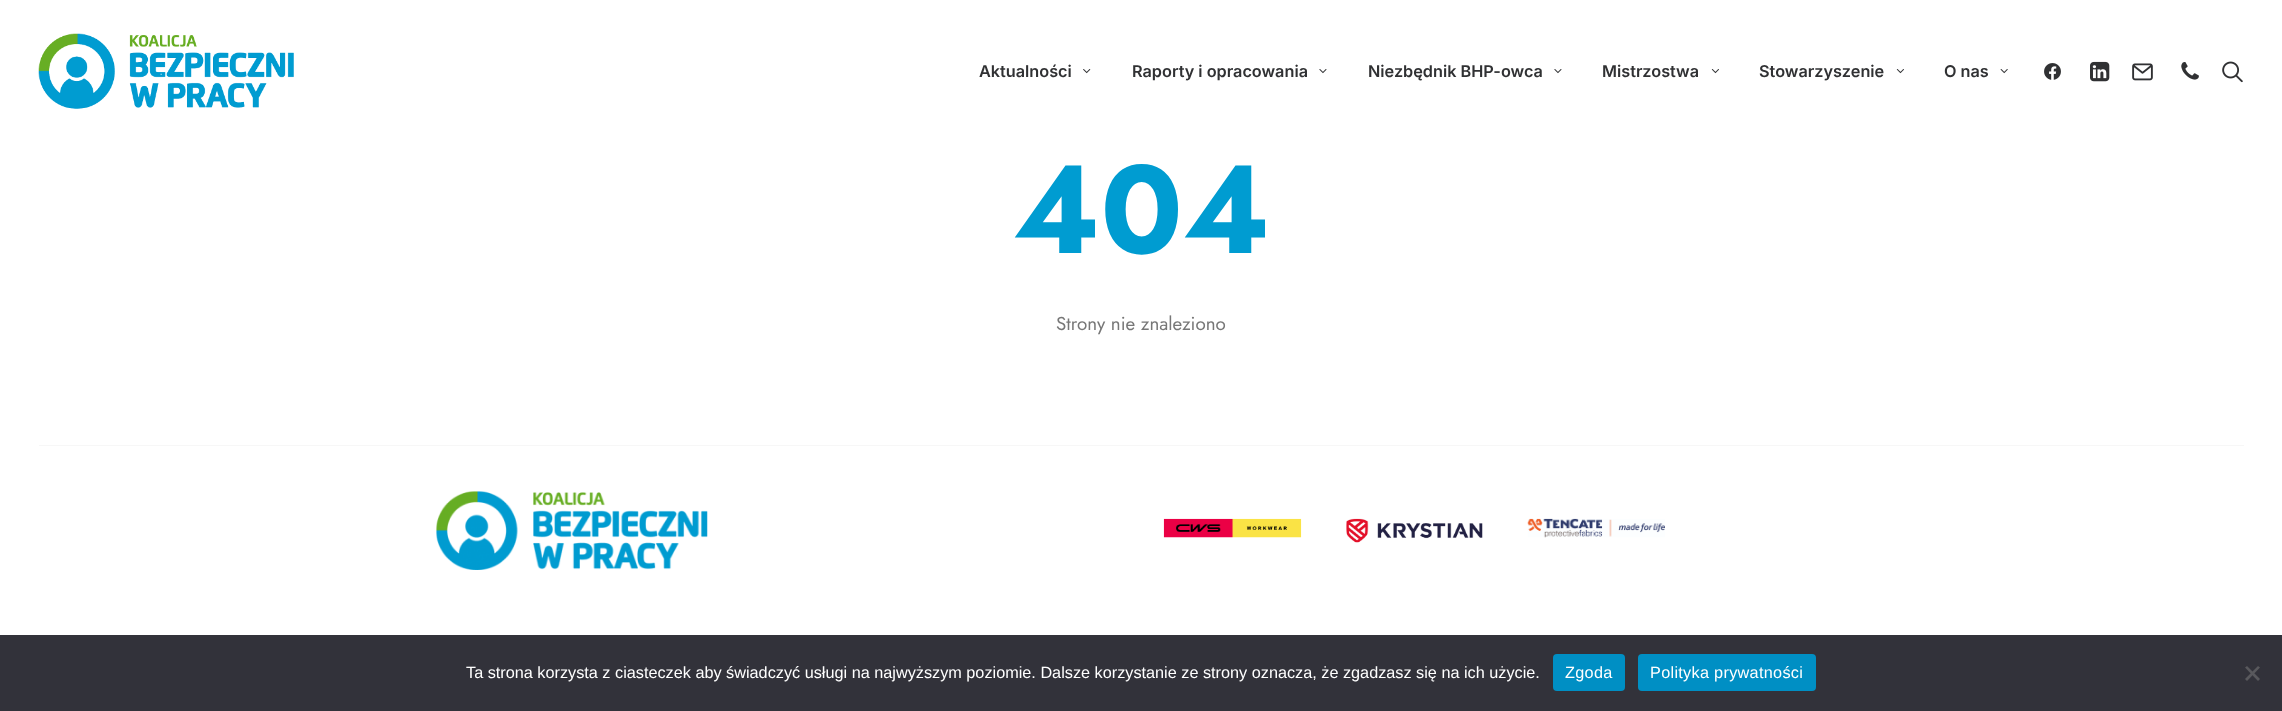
<!DOCTYPE html>
<meta charset="utf-8">
<style>body { margin: 0 } canvas { display: block }</style>
<canvas id="canvas" width="2282" height="711"></canvas>
<script type="module">
  const canvas = document.getElementById("canvas");
  const g = canvas.getContext("2d");
  g.miterLimit = 4;
  g.fontKerning = "normal";
  function drawText(s, x, y, [font, color]) {
    g.font = font;
    g.fillStyle = color;
    g.fillText(s, x, y);
  }
  function fillBox(x, y, w, h, color) {
    g.fillStyle = color;
    g.fillRect(x, y, w, h);
  }
  function fillRounded(x, y, w, h, r, color) {
    g.fillStyle = color;
    g.beginPath();
    g.roundRect(x, y, w, h, r);
    g.fill();
  }
  async function drawPicture(src, x, y, w, h) {
    const img = new Image();
    img.src = src;
    await img.decode();
    g.drawImage(img, x, y, w, h);
  }

  const s1 = ["600 16.25px Inter", "#303133"];
  const s2 = ["bold 125px Jost", "#009CD1"];
  const s3 = ["18.75px Jost", "#777777"];
  const s4 = ["16.25px Liberation Sans", "#FFFFFF"];

  fillBox(0, 0, 2282, 711, "#FFFFFF");
  await drawPicture("pic1.png", 38, 33, 256, 76);
  drawText("Aktualności", 979, 77, s1);
  await drawPicture("pic2.png", 1083, 69, 8, 5);
  drawText("Raporty i opracowania", 1132, 77, s1);
  await drawPicture("pic3.png", 1319, 69, 8, 5);
  drawText("Niezbędnik BHP-owca", 1368, 77, s1);
  await drawPicture("pic3.png", 1554, 69, 8, 5);
  drawText("Mistrzostwa", 1602, 77, s1);
  await drawPicture("pic4.png", 1711, 69, 8, 5);
  drawText("Stowarzyszenie", 1759, 77, s1);
  await drawPicture("pic4.png", 1896, 69, 8, 5);
  drawText("O nas", 1944, 77, s1);
  await drawPicture("pic5.png", 2000, 69, 8, 5);
  await drawPicture("pic6.png", 2044, 63, 17, 17);
  await drawPicture("pic7.png", 2090, 61, 20, 21);
  await drawPicture("pic8.png", 2132, 63, 21, 18);
  await drawPicture("pic9.png", 2181, 62, 18, 18);
  await drawPicture("pic10.png", 2222, 61, 21, 22);
  drawText("404", 1013, 253, s2);
  drawText("Strony nie znaleziono", 1056, 330, s3);
  fillBox(39, 445, 2205, 1, "#F7F7F7");
  await drawPicture("pic11.png", 436, 491, 272, 79);
  await drawPicture("pic12.png", 1163, 518, 139, 20);
  await drawPicture("pic13.png", 1346, 518, 137, 25);
  await drawPicture("pic14.png", 1527, 518, 138, 20);
  fillBox(0, 635, 2282, 76, "#32323A");
  drawText("Ta strona korzysta z ciasteczek aby świadczyć usługi na najwyższym poziomie. Dalsze korzystanie ze strony oznacza, że zgadzasz się na ich użycie.", 466, 678, s4);
  fillRounded(1553, 654, 72, 37, 4, "#008FC4");
  g.letterSpacing = "0.3px";
  drawText("Zgoda", 1565, 678, s4);
  fillRounded(1638, 654, 178, 37, 4, "#008FC4");
  drawText("Polityka prywatności", 1650, 678, s4);
  g.fillStyle = "#59595D";
  g.beginPath();
  g.moveTo(2258, 666);
  g.lineTo(2260, 667.5);
  g.lineTo(2247, 681);
  g.lineTo(2245, 679);
  g.closePath();
  g.fill();
  g.beginPath();
  g.moveTo(2245, 667.5);
  g.lineTo(2247, 666);
  g.lineTo(2260, 679);
  g.lineTo(2258, 681);
  g.closePath();
  g.fill();
</script>
